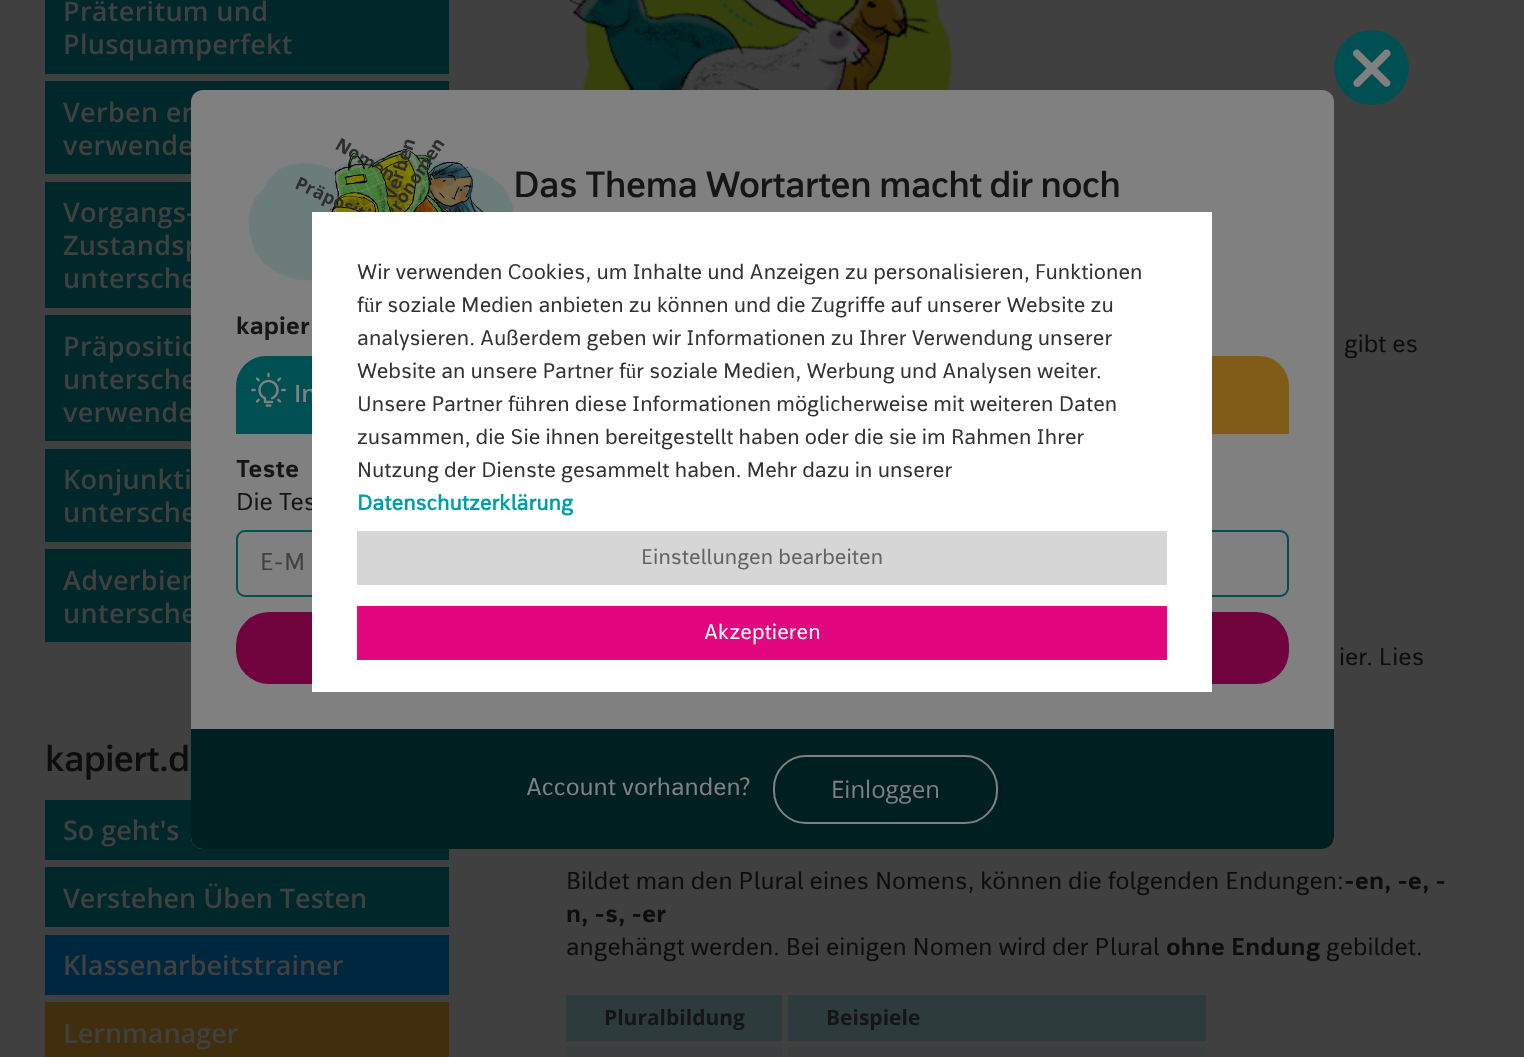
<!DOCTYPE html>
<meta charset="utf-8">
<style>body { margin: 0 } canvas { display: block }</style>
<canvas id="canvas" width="1524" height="1057"></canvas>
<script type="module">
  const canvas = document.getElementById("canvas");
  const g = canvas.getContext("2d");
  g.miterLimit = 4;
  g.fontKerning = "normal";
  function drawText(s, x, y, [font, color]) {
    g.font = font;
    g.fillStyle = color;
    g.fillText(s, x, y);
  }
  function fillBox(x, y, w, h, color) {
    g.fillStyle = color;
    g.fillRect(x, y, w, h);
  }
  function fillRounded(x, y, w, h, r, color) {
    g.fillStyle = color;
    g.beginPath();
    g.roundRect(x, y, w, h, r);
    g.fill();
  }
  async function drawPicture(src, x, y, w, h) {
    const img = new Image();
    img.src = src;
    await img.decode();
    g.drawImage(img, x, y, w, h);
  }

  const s1 = ["600 27px Open Sans", "#404040"];
  const s2 = ["600 36px 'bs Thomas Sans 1'", "#0D0D0D"];
  const s3 = ["24px 'bs Thomas Sans 1'", "#0D0D0D"];
  const s4 = ["bold 24px 'bs Thomas Sans 1'", "#0D0D0D"];
  const s5 = ["bold 21px Open Sans", "#151515"];
  const s6 = ["600 36px 'bs Thomas Sans 1'", "#151515"];
  const s7 = ["bold 24px 'bs Thomas Sans 1'", "#151515"];
  const s8 = ["600 24px Open Sans", "#808080"];
  const s9 = ["24px 'bs Thomas Sans 1'", "#151515"];
  const s10 = ["24px 'bs Thomas Sans 1'", "#404040"];
  const s11 = ["24px 'bs Thomas Sans 1'", "#808080"];
  const s12 = ["24px Open Sans", "#808080"];
  const s13 = ["21px 'bs Thomas Sans 1'", "#333333"];
  const s14 = ["bold 21px 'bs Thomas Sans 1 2'", "#009EA6"];
  const s15 = ["21px 'bs Thomas Sans 1'", "#646464"];
  const s16 = ["21px 'bs Thomas Sans 1'", "#FFFFFF"];

  fillBox(0, 0, 1524, 1057, "#404040");
  fillBox(45, 0, 404, 74, "#00282A");
  g.letterSpacing = "0.3px";
  drawText("Präteritum und", 63, 21, s1);
  drawText("Plusquamperfekt", 63, 54, s1);
  fillBox(45, 81, 404, 93, "#00282A");
  drawText("Verben er", 63, 122, s1);
  drawText("verwende", 63, 155, s1);
  fillBox(45, 182, 146, 126, "#00282A");
  drawText("Vorgangs-", 63, 222, s1);
  drawText("Zustandsp", 63, 255, s1);
  drawText("untersche", 63, 288, s1);
  fillBox(45, 315, 146, 126, "#00282A");
  drawText("Präpositio", 63, 356, s1);
  drawText("untersche", 63, 389, s1);
  drawText("verwende", 63, 422, s1);
  fillBox(45, 449, 146, 93, "#00282A");
  drawText("Konjunkti", 63, 489, s1);
  drawText("untersche", 63, 522, s1);
  fillBox(45, 549, 146, 93, "#00282A");
  drawText("Adverbien", 63, 590, s1);
  drawText("untersche", 63, 623, s1);
  g.letterSpacing = "-0.9px";
  drawText("kapiert.d", 45, 771, s2);
  fillBox(45, 800, 404, 60, "#00282A");
  g.letterSpacing = "0px";
  drawText("So geht's", 63, 840, s1);
  fillBox(45, 867, 404, 60, "#00282A");
  drawText("Verstehen Üben Testen", 63, 908, s1);
  fillBox(45, 935, 404, 60, "#002740");
  drawText("Klassenarbeitstrainer", 63, 975, s1);
  fillBox(45, 1002, 404, 55, "#402E0C");
  drawText("Lernmanager", 63, 1043, s1);
  await drawPicture("pic1.png", 568, 0, 385, 90);
  drawText("gibt es", 1344, 352, s3);
  drawText("ier. Lies", 1339, 665, s3);
  drawText("Bildet man den Plural eines Nomens, können die folgenden Endungen:", 566, 889, s3);
  drawText("-en, -e, -", 1344, 889, s4);
  drawText("n, -s, -er", 566, 922, s4);
  drawText("angehängt werden. Bei einigen Nomen wird der Plural", 566, 955, s3);
  drawText("ohne Endung", 1166, 955, s4);
  drawText("gebildet.", 1326, 955, s3);
  fillBox(566, 995, 216, 46, "#2E3B3C");
  drawText("Pluralbildung", 604, 1025, s5);
  fillBox(788, 995, 418, 46, "#2E3B3C");
  drawText("Beispiele", 826, 1025, s5);
  fillBox(566, 1047, 217, 10, "#393E3F");
  fillBox(788, 1047, 418, 10, "#393E3F");
  fillRounded(191, 90, 1143, 759, 12, "#808080");
  g.fillStyle = "#004F53";
  g.beginPath();
  g.arc(1371.5, 67.5, 37.5, 0, Math.PI * 2);
  g.fill();
  await drawPicture("pic2.png", 1353, 49, 38, 38);
  await drawPicture("pic3.png", 248, 138, 266, 143);
  g.letterSpacing = "-0.9px";
  drawText("Das Thema Wortarten macht dir noch", 513, 197, s6);
  g.letterSpacing = "0px";
  drawText("kapier", 236, 334, s7);
  g.fillStyle = "#004F53";
  g.beginPath();
  g.roundRect(236, 356, 346, 78, [30, 30, 0, 0]);
  g.fill();
  await drawPicture("pic4.png", 251, 372, 35, 35);
  drawText("In", 294, 402, s8);
  g.fillStyle = "#805C18";
  g.beginPath();
  g.roundRect(942, 356, 347, 78, [30, 30, 0, 0]);
  g.fill();
  drawText("Teste", 236, 477, s7);
  drawText("Die Tes", 236, 510, s9);
  g.beginPath();
  g.roundRect(237, 531, 1051, 65, 8);
  g.strokeStyle = "#004F53";
  g.lineWidth = 2;
  g.stroke();
  drawText("E-M", 260, 570, s10);
  fillRounded(236, 612, 1053, 72, 33, "#71043F");
  g.fillStyle = "#001F21";
  g.beginPath();
  g.roundRect(191, 729, 1143, 120, [0, 0, 12, 12]);
  g.fill();
  drawText("Account vorhanden?", 526, 795, s11);
  g.beginPath();
  g.roundRect(774, 756, 223, 67, 32);
  g.strokeStyle = "#808080";
  g.stroke();
  drawText("Einloggen", 831, 798, s12);
  fillBox(312, 212, 900, 480, "#FFFFFF");
  drawText("Wir verwenden Cookies, um Inhalte und Anzeigen zu personalisieren, Funktionen", 357, 279, s13);
  drawText("für soziale Medien anbieten zu können und die Zugriffe auf unserer Website zu", 357, 312, s13);
  drawText("analysieren. Außerdem geben wir Informationen zu Ihrer Verwendung unserer", 357, 345, s13);
  drawText("Website an unsere Partner für soziale Medien, Werbung und Analysen weiter.", 357, 378, s13);
  drawText("Unsere Partner führen diese Informationen möglicherweise mit weiteren Daten", 357, 411, s13);
  drawText("zusammen, die Sie ihnen bereitgestellt haben oder die sie im Rahmen Ihrer", 357, 444, s13);
  drawText("Nutzung der Dienste gesammelt haben. Mehr dazu in unserer", 357, 477, s13);
  drawText("Datenschutzerklärung", 357, 510, s14);
  fillBox(357, 531, 810, 54, "#D6D6D6");
  drawText("Einstellungen bearbeiten", 641, 564, s15);
  fillBox(357, 606, 810, 54, "#E2077E");
  drawText("Akzeptieren", 704, 639, s16);
</script>
